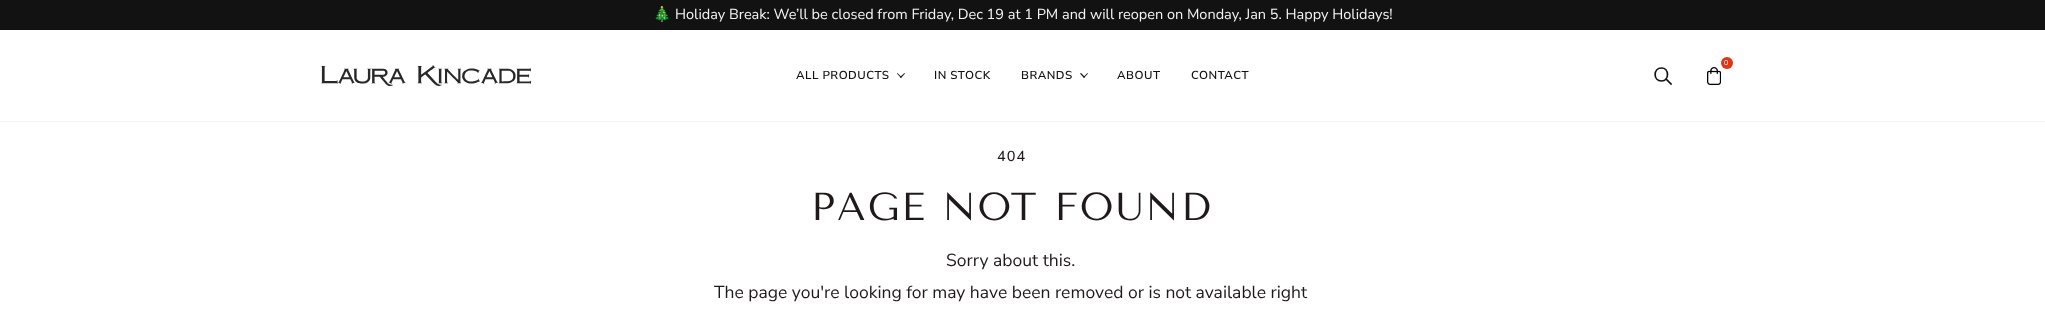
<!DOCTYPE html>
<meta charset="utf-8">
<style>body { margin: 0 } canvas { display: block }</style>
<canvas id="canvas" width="2045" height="310"></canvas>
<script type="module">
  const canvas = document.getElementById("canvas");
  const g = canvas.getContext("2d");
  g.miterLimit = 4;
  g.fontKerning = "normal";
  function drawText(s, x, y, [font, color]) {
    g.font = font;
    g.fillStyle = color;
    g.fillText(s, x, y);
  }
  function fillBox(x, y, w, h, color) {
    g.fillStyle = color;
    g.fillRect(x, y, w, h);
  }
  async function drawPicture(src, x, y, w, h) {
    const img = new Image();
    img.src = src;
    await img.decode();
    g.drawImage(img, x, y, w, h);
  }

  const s1 = ["14.5px Noto Color Emoji", "#F7F5F4"];
  const s2 = ["14.5px Nunito Sans", "#F7F5F4"];
  const s3 = ["7px Nunito Sans", "#FFFFFF"];
  const s4 = ["600 11.5px Nunito Sans", "#121212"];
  const s5 = ["500 14.5px Nunito Sans", "#1F1919"];
  const s6 = ["39px Tenor Sans", "#1F1919"];
  const s7 = ["17.5px Nunito Sans", "#1F1919"];

  fillBox(0, 0, 2045, 310, "#FFFFFF");
  fillBox(0, 121, 2045, 1, "#F7F5F4");
  fillBox(0, 0, 2045, 30, "#121212");
  drawText("🎄", 653, 19, s1);
  drawText("Holiday Break: We’ll be closed from Friday, Dec 19 at 1 PM and will reopen on Monday, Jan 5. Happy Holidays!", 675, 19, s2);
  g.fillStyle = "#DE3619";
  g.beginPath();
  g.arc(1727, 63, 6, 0, Math.PI * 2);
  g.fill();
  drawText("0", 1724, 65, s3);
  await drawPicture("pic1.png", 1707, 67, 14, 18);
  g.beginPath();
  g.moveTo(1661.5, 81);
  g.bezierCurveTo(1669.5, 81, 1669.5, 68, 1661.5, 68);
  g.bezierCurveTo(1653, 68, 1653, 81, 1661.5, 81);
  g.closePath();
  g.moveTo(1671, 84);
  g.lineTo(1666, 79);
  g.strokeStyle = "#121212";
  g.lineWidth = 1.7;
  g.lineCap = "square";
  g.stroke();
  await drawPicture("pic2.png", 321, 65, 210, 21);
  g.letterSpacing = "0.5px";
  drawText("ALL PRODUCTS", 796, 79, s4);
  g.beginPath();
  g.moveTo(900, 77);
  g.lineTo(904.5, 73);
  g.lineTo(905, 73.5);
  g.lineTo(901, 78);
  g.closePath();
  g.fill();
  g.beginPath();
  g.moveTo(897, 73.5);
  g.lineTo(897.5, 73);
  g.lineTo(901.5, 77);
  g.lineTo(901, 78);
  g.closePath();
  g.fill();
  drawText("IN STOCK", 934, 79, s4);
  drawText("BRANDS", 1021, 79, s4);
  g.beginPath();
  g.moveTo(1083.5, 77);
  g.lineTo(1087.5, 73);
  g.lineTo(1088, 73.5);
  g.lineTo(1084, 78);
  g.closePath();
  g.fill();
  g.beginPath();
  g.moveTo(1080, 73.5);
  g.lineTo(1081, 73);
  g.lineTo(1085, 77);
  g.lineTo(1084, 78);
  g.closePath();
  g.fill();
  drawText("ABOUT", 1117, 79, s4);
  drawText("CONTACT", 1191, 79, s4);
  g.letterSpacing = "1px";
  drawText("404", 997, 161, s5);
  g.letterSpacing = "2px";
  drawText("PAGE NOT FOUND", 811, 220, s6);
  g.letterSpacing = "0px";
  drawText("Sorry about this.", 946, 266, s7);
  drawText("The page you're looking for may have been removed or is not available right", 714, 298, s7);
</script>
